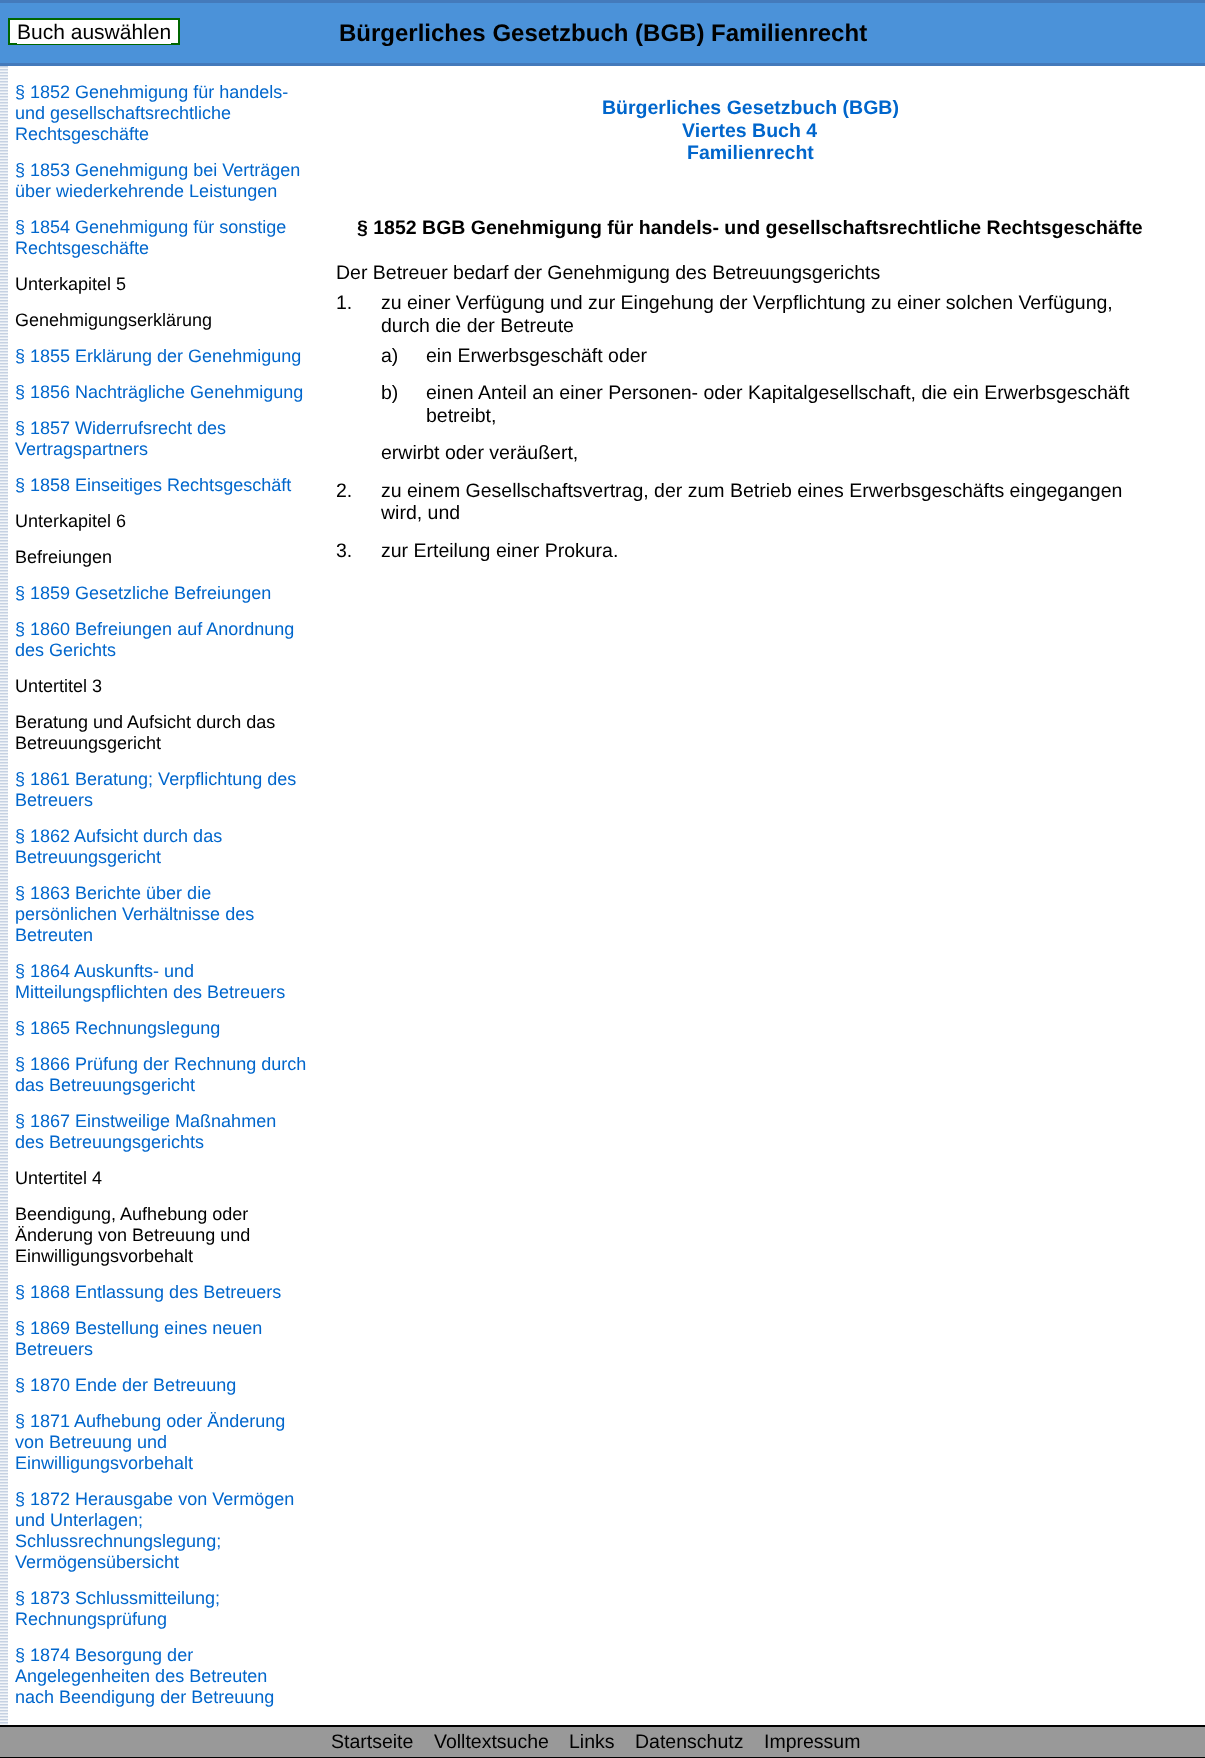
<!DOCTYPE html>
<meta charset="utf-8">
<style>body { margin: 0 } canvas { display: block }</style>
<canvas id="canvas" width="1205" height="1758"></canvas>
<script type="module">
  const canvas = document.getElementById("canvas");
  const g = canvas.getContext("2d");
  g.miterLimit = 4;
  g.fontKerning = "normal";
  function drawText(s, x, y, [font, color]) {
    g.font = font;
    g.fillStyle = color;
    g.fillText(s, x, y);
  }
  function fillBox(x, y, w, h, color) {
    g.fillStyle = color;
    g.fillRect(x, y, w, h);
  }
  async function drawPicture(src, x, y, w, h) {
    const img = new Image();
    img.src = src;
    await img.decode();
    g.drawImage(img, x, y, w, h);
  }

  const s1 = ["21px Liberation Sans", "#000000"];
  const s2 = ["bold 24px Liberation Sans", "#000000"];
  const s3 = ["18px Liberation Sans", "#0066CC"];
  const s4 = ["18px Liberation Sans", "#000000"];
  const s5 = ["bold 19.5px Liberation Sans", "#0066CC"];
  const s6 = ["bold 19.5px Liberation Sans", "#000000"];
  const s7 = ["19.5px Liberation Sans", "#000000"];

  fillBox(0, 0, 1205, 1758, "#FFFFFF");
  fillBox(0, 3, 1205, 60, "#4B92D9");
  fillBox(0, 0, 1205, 3, "#447ABB");
  fillBox(0, 63, 1205, 3, "#447ABB");
  g.fillStyle = "#FFFFFF";
  g.beginPath();
  g.rect(9, 19, 170, 25);
  g.fill();
  g.strokeStyle = "#006600";
  g.lineWidth = 2;
  g.stroke();
  fillBox(17, 43, 154, 1, "#FFFFFF");
  drawText("Buch auswählen", 17, 39, s1);
  drawText("Bürgerliches Gesetzbuch (BGB) Familienrecht", 339, 41, s2);
  await drawPicture("pic1.png", 0, 66, 8, 1659);
  drawText("§ 1852 Genehmigung für handels-", 15, 98, s3);
  drawText("und gesellschaftsrechtliche", 15, 119, s3);
  drawText("Rechtsgeschäfte", 15, 140, s3);
  drawText("§ 1853 Genehmigung bei Verträgen", 15, 176, s3);
  drawText("über wiederkehrende Leistungen", 15, 197, s3);
  drawText("§ 1854 Genehmigung für sonstige", 15, 233, s3);
  drawText("Rechtsgeschäfte", 15, 254, s3);
  drawText("Unterkapitel 5", 15, 290, s4);
  drawText("Genehmigungserklärung", 15, 326, s4);
  drawText("§ 1855 Erklärung der Genehmigung", 15, 362, s3);
  drawText("§ 1856 Nachträgliche Genehmigung", 15, 398, s3);
  drawText("§ 1857 Widerrufsrecht des", 15, 434, s3);
  drawText("Vertragspartners", 15, 455, s3);
  drawText("§ 1858 Einseitiges Rechtsgeschäft", 15, 491, s3);
  drawText("Unterkapitel 6", 15, 527, s4);
  drawText("Befreiungen", 15, 563, s4);
  drawText("§ 1859 Gesetzliche Befreiungen", 15, 599, s3);
  drawText("§ 1860 Befreiungen auf Anordnung", 15, 635, s3);
  drawText("des Gerichts", 15, 656, s3);
  drawText("Untertitel 3", 15, 692, s4);
  drawText("Beratung und Aufsicht durch das", 15, 728, s4);
  drawText("Betreuungsgericht", 15, 749, s4);
  drawText("§ 1861 Beratung; Verpflichtung des", 15, 785, s3);
  drawText("Betreuers", 15, 806, s3);
  drawText("§ 1862 Aufsicht durch das", 15, 842, s3);
  drawText("Betreuungsgericht", 15, 863, s3);
  drawText("§ 1863 Berichte über die", 15, 899, s3);
  drawText("persönlichen Verhältnisse des", 15, 920, s3);
  drawText("Betreuten", 15, 941, s3);
  drawText("§ 1864 Auskunfts- und", 15, 977, s3);
  drawText("Mitteilungspflichten des Betreuers", 15, 998, s3);
  drawText("§ 1865 Rechnungslegung", 15, 1034, s3);
  drawText("§ 1866 Prüfung der Rechnung durch", 15, 1070, s3);
  drawText("das Betreuungsgericht", 15, 1091, s3);
  drawText("§ 1867 Einstweilige Maßnahmen", 15, 1127, s3);
  drawText("des Betreuungsgerichts", 15, 1148, s3);
  drawText("Untertitel 4", 15, 1184, s4);
  drawText("Beendigung, Aufhebung oder", 15, 1220, s4);
  drawText("Änderung von Betreuung und", 15, 1241, s4);
  drawText("Einwilligungsvorbehalt", 15, 1262, s4);
  drawText("§ 1868 Entlassung des Betreuers", 15, 1298, s3);
  drawText("§ 1869 Bestellung eines neuen", 15, 1334, s3);
  drawText("Betreuers", 15, 1355, s3);
  drawText("§ 1870 Ende der Betreuung", 15, 1391, s3);
  drawText("§ 1871 Aufhebung oder Änderung", 15, 1427, s3);
  drawText("von Betreuung und", 15, 1448, s3);
  drawText("Einwilligungsvorbehalt", 15, 1469, s3);
  drawText("§ 1872 Herausgabe von Vermögen", 15, 1505, s3);
  drawText("und Unterlagen;", 15, 1526, s3);
  drawText("Schlussrechnungslegung;", 15, 1547, s3);
  drawText("Vermögensübersicht", 15, 1568, s3);
  drawText("§ 1873 Schlussmitteilung;", 15, 1604, s3);
  drawText("Rechnungsprüfung", 15, 1625, s3);
  drawText("§ 1874 Besorgung der", 15, 1661, s3);
  drawText("Angelegenheiten des Betreuten", 15, 1682, s3);
  drawText("nach Beendigung der Betreuung", 15, 1703, s3);
  drawText("Bürgerliches Gesetzbuch (BGB)", 602, 114, s5);
  drawText("Viertes Buch 4", 682, 137, s5);
  drawText("Familienrecht", 687, 159, s5);
  drawText("§ 1852 BGB Genehmigung für handels- und gesellschaftsrechtliche Rechtsgeschäfte", 357, 234, s6);
  drawText("Der Betreuer bedarf der Genehmigung des Betreuungsgerichts", 336, 279, s7);
  drawText("1.", 336, 309, s7);
  drawText("zu einer Verfügung und zur Eingehung der Verpflichtung zu einer solchen Verfügung,", 381, 309, s7);
  drawText("durch die der Betreute", 381, 332, s7);
  drawText("a)", 381, 362, s7);
  drawText("ein Erwerbsgeschäft oder", 426, 362, s7);
  drawText("b)", 381, 399, s7);
  drawText("einen Anteil an einer Personen- oder Kapitalgesellschaft, die ein Erwerbsgeschäft", 426, 399, s7);
  drawText("betreibt,", 426, 422, s7);
  drawText("erwirbt oder veräußert,", 381, 459, s7);
  drawText("2.", 336, 497, s7);
  drawText("zu einem Gesellschaftsvertrag, der zum Betrieb eines Erwerbsgeschäfts eingegangen", 381, 497, s7);
  drawText("wird, und", 381, 519, s7);
  drawText("3.", 336, 557, s7);
  drawText("zur Erteilung einer Prokura.", 381, 557, s7);
  fillBox(0, 1727, 1205, 30, "#999999");
  fillBox(0, 1725, 1205, 2, "#000000");
  fillBox(0, 1757, 1205, 1, "#000000");
  drawText("Startseite", 331, 1748, s7);
  drawText("Volltextsuche", 434, 1748, s7);
  drawText("Links", 569, 1748, s7);
  drawText("Datenschutz", 635, 1748, s7);
  drawText("Impressum", 764, 1748, s7);
</script>
